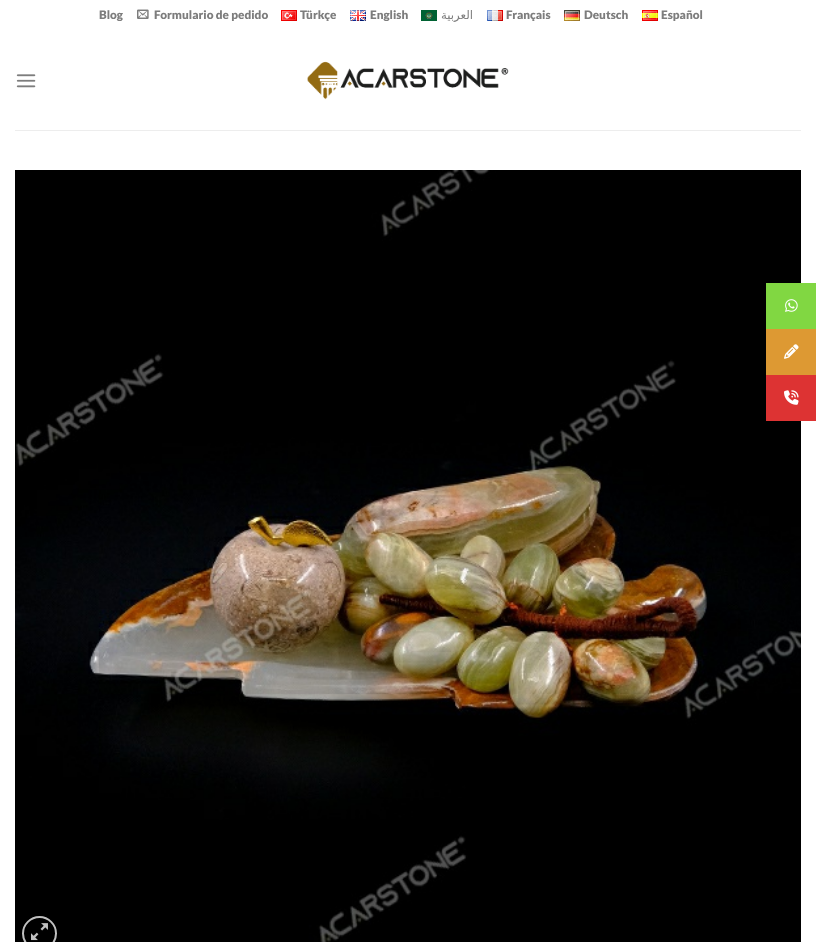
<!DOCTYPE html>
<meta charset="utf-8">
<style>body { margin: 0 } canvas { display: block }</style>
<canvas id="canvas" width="816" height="942"></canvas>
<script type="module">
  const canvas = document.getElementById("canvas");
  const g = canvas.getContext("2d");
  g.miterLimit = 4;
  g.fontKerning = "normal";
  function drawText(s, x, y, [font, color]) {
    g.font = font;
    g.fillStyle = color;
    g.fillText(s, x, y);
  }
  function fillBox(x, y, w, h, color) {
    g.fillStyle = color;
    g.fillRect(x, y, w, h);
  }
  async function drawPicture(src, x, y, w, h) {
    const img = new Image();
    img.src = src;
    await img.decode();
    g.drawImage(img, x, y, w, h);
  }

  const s1 = ["900 11.75px Lato", "#7D7D7D"];
  const s2 = ["11.75px DejaVu Sans", "#7D7D7D"];

  fillBox(0, 0, 816, 942, "#FFFFFF");
  drawText("Blog", 99, 19, s1);
  await drawPicture("pic1.png", 137, 9, 12, 10);
  drawText("Formulario de pedido", 154, 19, s1);
  await drawPicture("pic2.png", 281, 10, 16, 11);
  drawText("Türkçe", 300, 19, s1);
  await drawPicture("pic3.png", 350, 10, 16, 11);
  drawText("English", 370, 19, s1);
  await drawPicture("pic4.png", 421, 10, 16, 11);
  g.direction = "rtl";
  drawText("العربية", 473, 19, s2);
  await drawPicture("pic5.png", 487, 10, 16, 11);
  g.direction = "ltr";
  drawText("Français", 506, 19, s1);
  await drawPicture("pic6.png", 564, 10, 16, 11);
  drawText("Deutsch", 584, 19, s1);
  await drawPicture("pic7.png", 642, 10, 16, 11);
  drawText("Español", 661, 19, s1);
  await drawPicture("pic8.png", 16, 74, 20, 14);
  await drawPicture("pic9.png", 307, 61, 202, 39);
  fillBox(15, 130, 786, 1, "#EDEDED");
  await drawPicture("pic10.png", 15, 170, 786, 772);
  g.beginPath();
  g.arc(39.5, 933.5, 16.5, 0, Math.PI * 2);
  g.strokeStyle = "#C0C0C0";
  g.lineWidth = 2;
  g.stroke();
  await drawPicture("pic11.png", 31, 923, 17, 18);
  fillBox(766, 283, 50, 46, "#81D742");
  await drawPicture("pic12.png", 785, 299, 13, 13);
  fillBox(766, 329, 50, 46, "#DD9933");
  await drawPicture("pic13.png", 784, 344, 15, 15);
  fillBox(766, 375, 50, 46, "#DD3333");
  await drawPicture("pic14.png", 784, 390, 15, 15);
</script>
